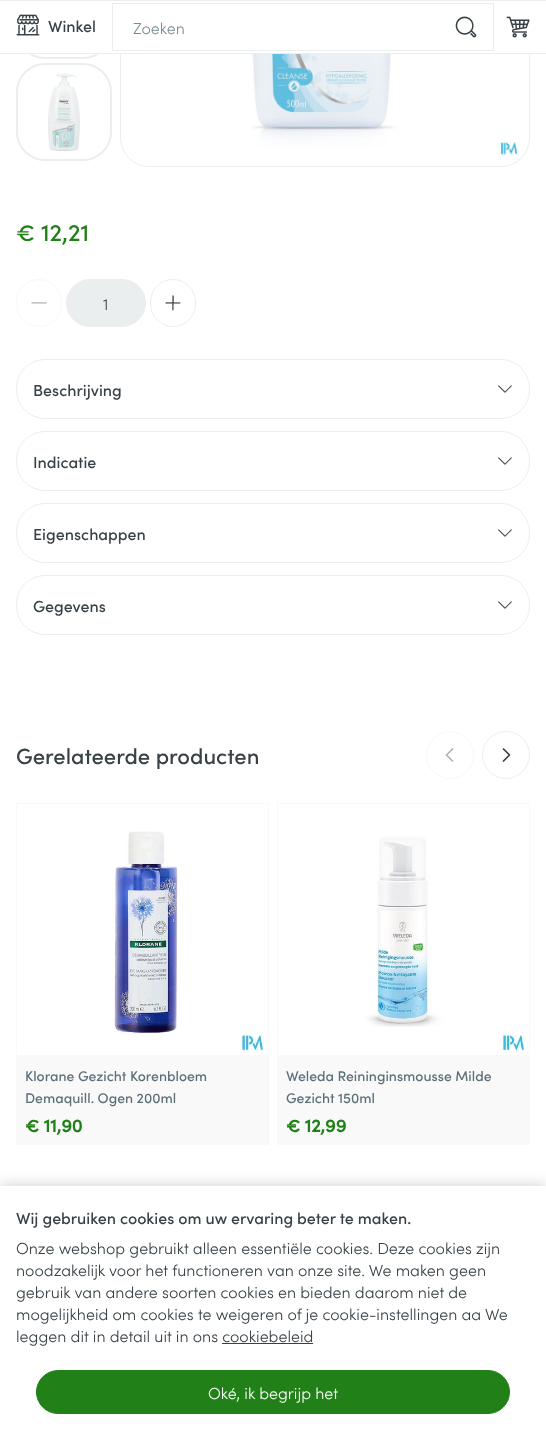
<!DOCTYPE html>
<meta charset="utf-8">
<style>body { margin: 0 } canvas { display: block }</style>
<canvas id="canvas" width="546" height="1434"></canvas>
<script type="module">
  const canvas = document.getElementById("canvas");
  const g = canvas.getContext("2d");
  g.miterLimit = 4;
  g.fontKerning = "normal";
  function drawText(s, x, y, [font, color]) {
    g.font = font;
    g.fillStyle = color;
    g.fillText(s, x, y);
  }
  function fillBox(x, y, w, h, color) {
    g.fillStyle = color;
    g.fillRect(x, y, w, h);
  }
  async function drawPicture(src, x, y, w, h) {
    const img = new Image();
    img.src = src;
    await img.decode();
    g.drawImage(img, x, y, w, h);
  }

  const s1 = ["500 16px Sofia", "#374146"];
  const s2 = ["300 16px Sofia", "#788C96"];
  const s3 = ["500 24px Sofia", "#218118"];
  const s4 = ["300 16px Sofia", "#374146"];
  const s5 = ["500 22px Sofia", "#374146"];
  const s6 = ["500 14px Sofia", "#5D6F77"];
  const s7 = ["bold 18px Sofia", "#218118"];
  const s8 = ["300 16px Sofia", "#FFFFFF"];

  fillBox(0, 0, 546, 1434, "#FFFFFF");
  g.beginPath();
  g.roundRect(17, -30, 94, 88, 28);
  g.strokeStyle = "#EBEEEF";
  g.lineWidth = 2;
  g.stroke();
  g.beginPath();
  g.roundRect(120.5, -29.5, 409, 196, 28.5);
  g.lineWidth = 1;
  g.stroke();
  fillBox(16, 1, 514, 52, "#FFFFFF");
  fillBox(0, 0, 546, 1, "#EBEEEF");
  fillBox(0, 53, 546, 1, "#EBEEEF");
  await drawPicture("pic1.png", 16, 14, 24, 22);
  drawText("Winkel", 48, 32, s1);
  g.strokeRect(112.5, 3.5, 381, 47);
  drawText("Zoeken", 133, 34, s2);
  await drawPicture("pic2.png", 455, 16, 22, 22);
  await drawPicture("pic3.png", 506, 16, 24, 22);
  g.beginPath();
  g.roundRect(17, 64, 94, 96, 28);
  g.lineWidth = 2;
  g.stroke();
  await drawPicture("pic4.png", 48, 73, 32, 78);
  await drawPicture("pic5.png", 251, 54, 268, 103);
  drawText("€ 12,21", 16, 241, s3);
  g.beginPath();
  g.roundRect(16.5, 279.5, 45, 47, 22.5);
  g.strokeStyle = "#F7F8F9";
  g.lineWidth = 1;
  g.stroke();
  await drawPicture("pic6.png", 31, 302, 16, 2);
  g.fillStyle = "#EBEEEF";
  g.beginPath();
  g.roundRect(66.5, 279.5, 79, 47, 23.5);
  g.fill();
  g.strokeStyle = "#EBEEEF";
  g.stroke();
  drawText("1", 103, 310, s4);
  g.beginPath();
  g.roundRect(150.5, 279.5, 45, 47, 22.5);
  g.stroke();
  await drawPicture("pic7.png", 165, 295, 16, 16);
  g.beginPath();
  g.roundRect(16.5, 359.5, 513, 59, 28.5);
  g.stroke();
  drawText("Beschrijving", 33, 396, s1);
  await drawPicture("pic8.png", 498, 385, 14, 8);
  g.beginPath();
  g.roundRect(16.5, 431.5, 513, 59, 28.5);
  g.stroke();
  drawText("Indicatie", 33, 468, s1);
  await drawPicture("pic8.png", 498, 457, 14, 8);
  g.beginPath();
  g.roundRect(16.5, 503.5, 513, 59, 28.5);
  g.stroke();
  drawText("Eigenschappen", 33, 540, s1);
  await drawPicture("pic8.png", 498, 529, 14, 8);
  g.beginPath();
  g.roundRect(16.5, 575.5, 513, 59, 28.5);
  g.stroke();
  drawText("Gegevens", 33, 612, s1);
  await drawPicture("pic8.png", 498, 601, 14, 8);
  drawText("Gerelateerde producten", 16, 764, s5);
  g.beginPath();
  g.arc(450, 755, 23.5, 0, Math.PI * 2);
  g.strokeStyle = "#F7F8F9";
  g.stroke();
  g.beginPath();
  g.moveTo(452.5, 761);
  g.lineTo(446.5, 755);
  g.lineTo(452.5, 749);
  g.strokeStyle = "#AFB3B5";
  g.lineWidth = 1.7;
  g.lineCap = "round";
  g.lineJoin = "round";
  g.stroke();
  g.beginPath();
  g.arc(506, 755, 23.5, 0, Math.PI * 2);
  g.strokeStyle = "#EBEEEF";
  g.lineWidth = 1;
  g.stroke();
  g.beginPath();
  g.moveTo(503.5, 749);
  g.lineTo(509.5, 755);
  g.lineTo(503.5, 761);
  g.strokeStyle = "#374146";
  g.lineWidth = 1.7;
  g.stroke();
  g.strokeStyle = "#F9F9FA";
  g.lineWidth = 1;
  g.lineJoin = "miter";
  g.strokeRect(16.5, 803.5, 252, 341);
  await drawPicture("pic9.png", 113, 831, 154, 223);
  fillBox(17, 1055, 251, 89, "#F9F9FA");
  drawText("Klorane Gezicht Korenbloem", 25, 1081, s6);
  drawText("Demaquill. Ogen 200ml", 25, 1103, s6);
  drawText("€ 11,90", 25, 1132, s7);
  g.strokeRect(277.5, 803.5, 252, 341);
  await drawPicture("pic10.png", 365, 836, 163, 218);
  fillBox(278, 1055, 251, 89, "#F9F9FA");
  drawText("Weleda Reininginsmousse Milde", 286, 1081, s6);
  drawText("Gezicht 150ml", 286, 1103, s6);
  drawText("€ 12,99", 286, 1132, s7);
  g.fillStyle = "rgba(0, 0, 0, 0.2)";
  g.filter = "blur(7.5px)";
  g.beginPath();
  g.rect(0, 1186, 546, 248);
  g.fill();
  g.filter = "none";
  fillBox(0, 1186, 546, 248, "#FFFFFF");
  drawText("Wij gebruiken cookies om uw ervaring beter te maken.", 16, 1224, s1);
  drawText("Onze webshop gebruikt alleen essentiële cookies. Deze cookies zijn", 16, 1254, s4);
  drawText("noodzakelijk voor het functioneren van onze site. We maken geen", 16, 1276, s4);
  drawText("gebruik van andere soorten cookies en bieden daarom niet de", 16, 1298, s4);
  drawText("mogelijkheid om cookies te weigeren of je cookie-instellingen aa We", 16, 1320, s4);
  drawText("leggen dit in detail uit in ons cookiebeleid", 16, 1342, s4);
  fillBox(222, 1343, 91, 1, "#374146");
  g.fillStyle = "#218118";
  g.beginPath();
  g.roundRect(36.5, 1370.5, 473, 43, 21.5);
  g.fill();
  g.strokeStyle = "#218118";
  g.stroke();
  drawText("Oké, ik begrijp het", 208, 1399, s8);
</script>
